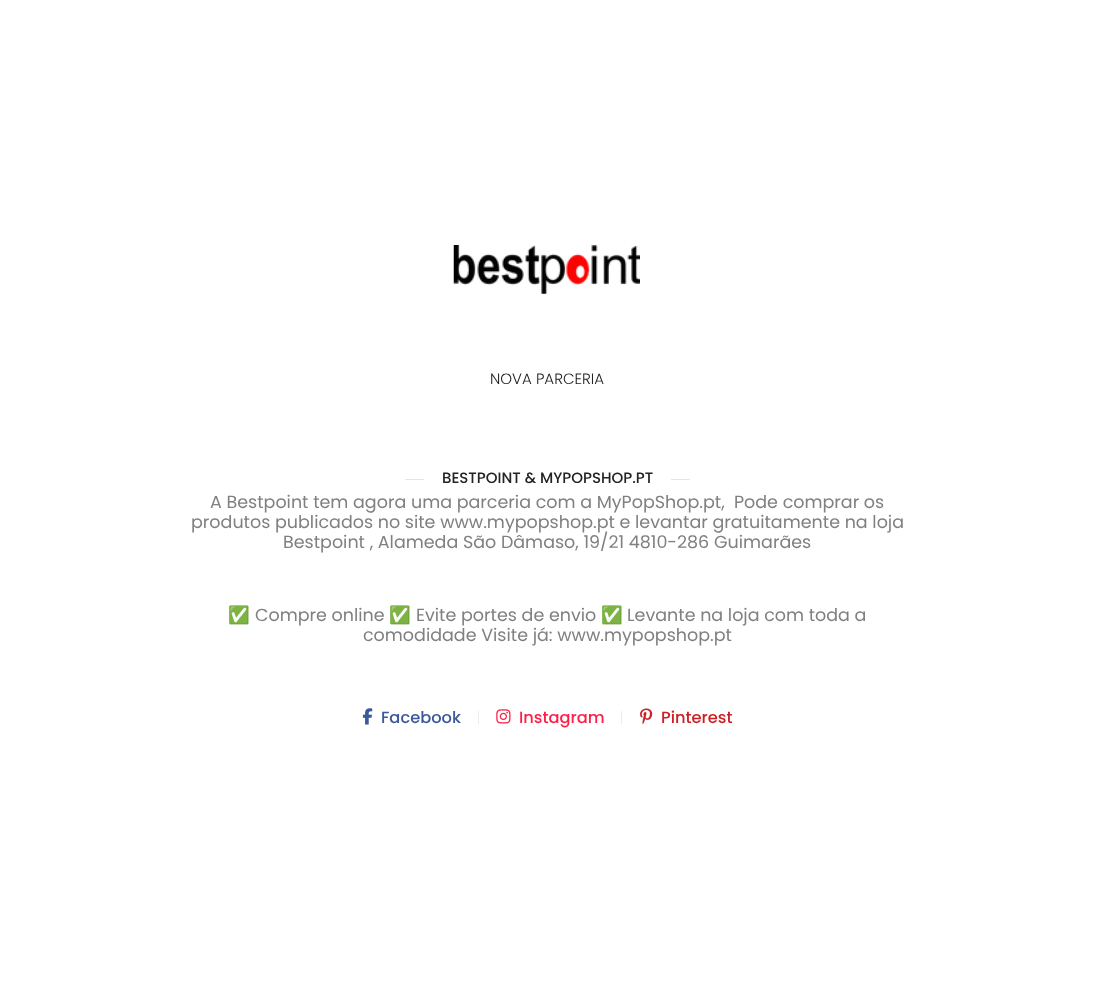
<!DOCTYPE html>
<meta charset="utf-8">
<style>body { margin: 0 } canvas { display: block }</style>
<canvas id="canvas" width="1095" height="982"></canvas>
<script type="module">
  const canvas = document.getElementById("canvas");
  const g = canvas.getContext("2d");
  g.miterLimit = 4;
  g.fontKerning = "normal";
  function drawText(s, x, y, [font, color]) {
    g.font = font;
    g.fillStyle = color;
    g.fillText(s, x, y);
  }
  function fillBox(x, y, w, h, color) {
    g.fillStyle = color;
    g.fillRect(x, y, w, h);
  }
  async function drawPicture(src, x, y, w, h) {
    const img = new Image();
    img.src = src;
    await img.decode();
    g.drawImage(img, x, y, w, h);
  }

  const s1 = ["300 15px Poppins", "#232323"];
  const s2 = ["500 15px Poppins", "#232323"];
  const s3 = ["17.5px Poppins", "#808080"];
  const s4 = ["17.5px Noto Color Emoji", "#808080"];
  const s5 = ["500 16.25px Poppins", "#3B5998"];
  const s6 = ["500 16.25px Poppins", "#FE1F49"];
  const s7 = ["500 16.25px Poppins", "#CB2027"];

  fillBox(0, 0, 1095, 982, "#FFFFFF");
  await drawPicture("pic1.png", 453, 245, 187, 49);
  drawText("NOVA PARCERIA", 490, 384, s1);
  fillBox(405, 479, 19, 1, "#E4E4E4");
  drawText("BESTPOINT & MYPOPSHOP.PT", 442, 483, s2);
  fillBox(671, 479, 19, 1, "#E4E4E4");
  drawText("A Bestpoint tem agora uma parceria com a MyPopShop.pt, ️ Pode comprar os", 210, 508, s3);
  drawText("produtos publicados no site www.mypopshop.pt e levantar gratuitamente na loja", 191, 528, s3);
  drawText("Bestpoint , Alameda São Dâmaso, 19/21 4810-286 Guimarães", 283, 548, s3);
  drawText("✅", 228, 621, s4);
  drawText("Compre online", 255, 621, s3);
  drawText("✅", 389, 621, s4);
  drawText("Evite portes de envio", 416, 621, s3);
  drawText("✅", 601, 621, s4);
  drawText("Levante na loja com toda a", 627, 621, s3);
  drawText("comodidade Visite já: www.mypopshop.pt", 363, 641, s3);
  await drawPicture("pic2.png", 362, 708, 11, 17);
  drawText("Facebook", 381, 723, s5);
  fillBox(478, 711, 1, 13, "#ECECEC");
  await drawPicture("pic3.png", 496, 709, 15, 15);
  drawText("Instagram", 519, 723, s6);
  fillBox(621, 711, 1, 13, "#ECECEC");
  await drawPicture("pic4.png", 640, 708, 13, 17);
  drawText("Pinterest", 661, 723, s7);
</script>
